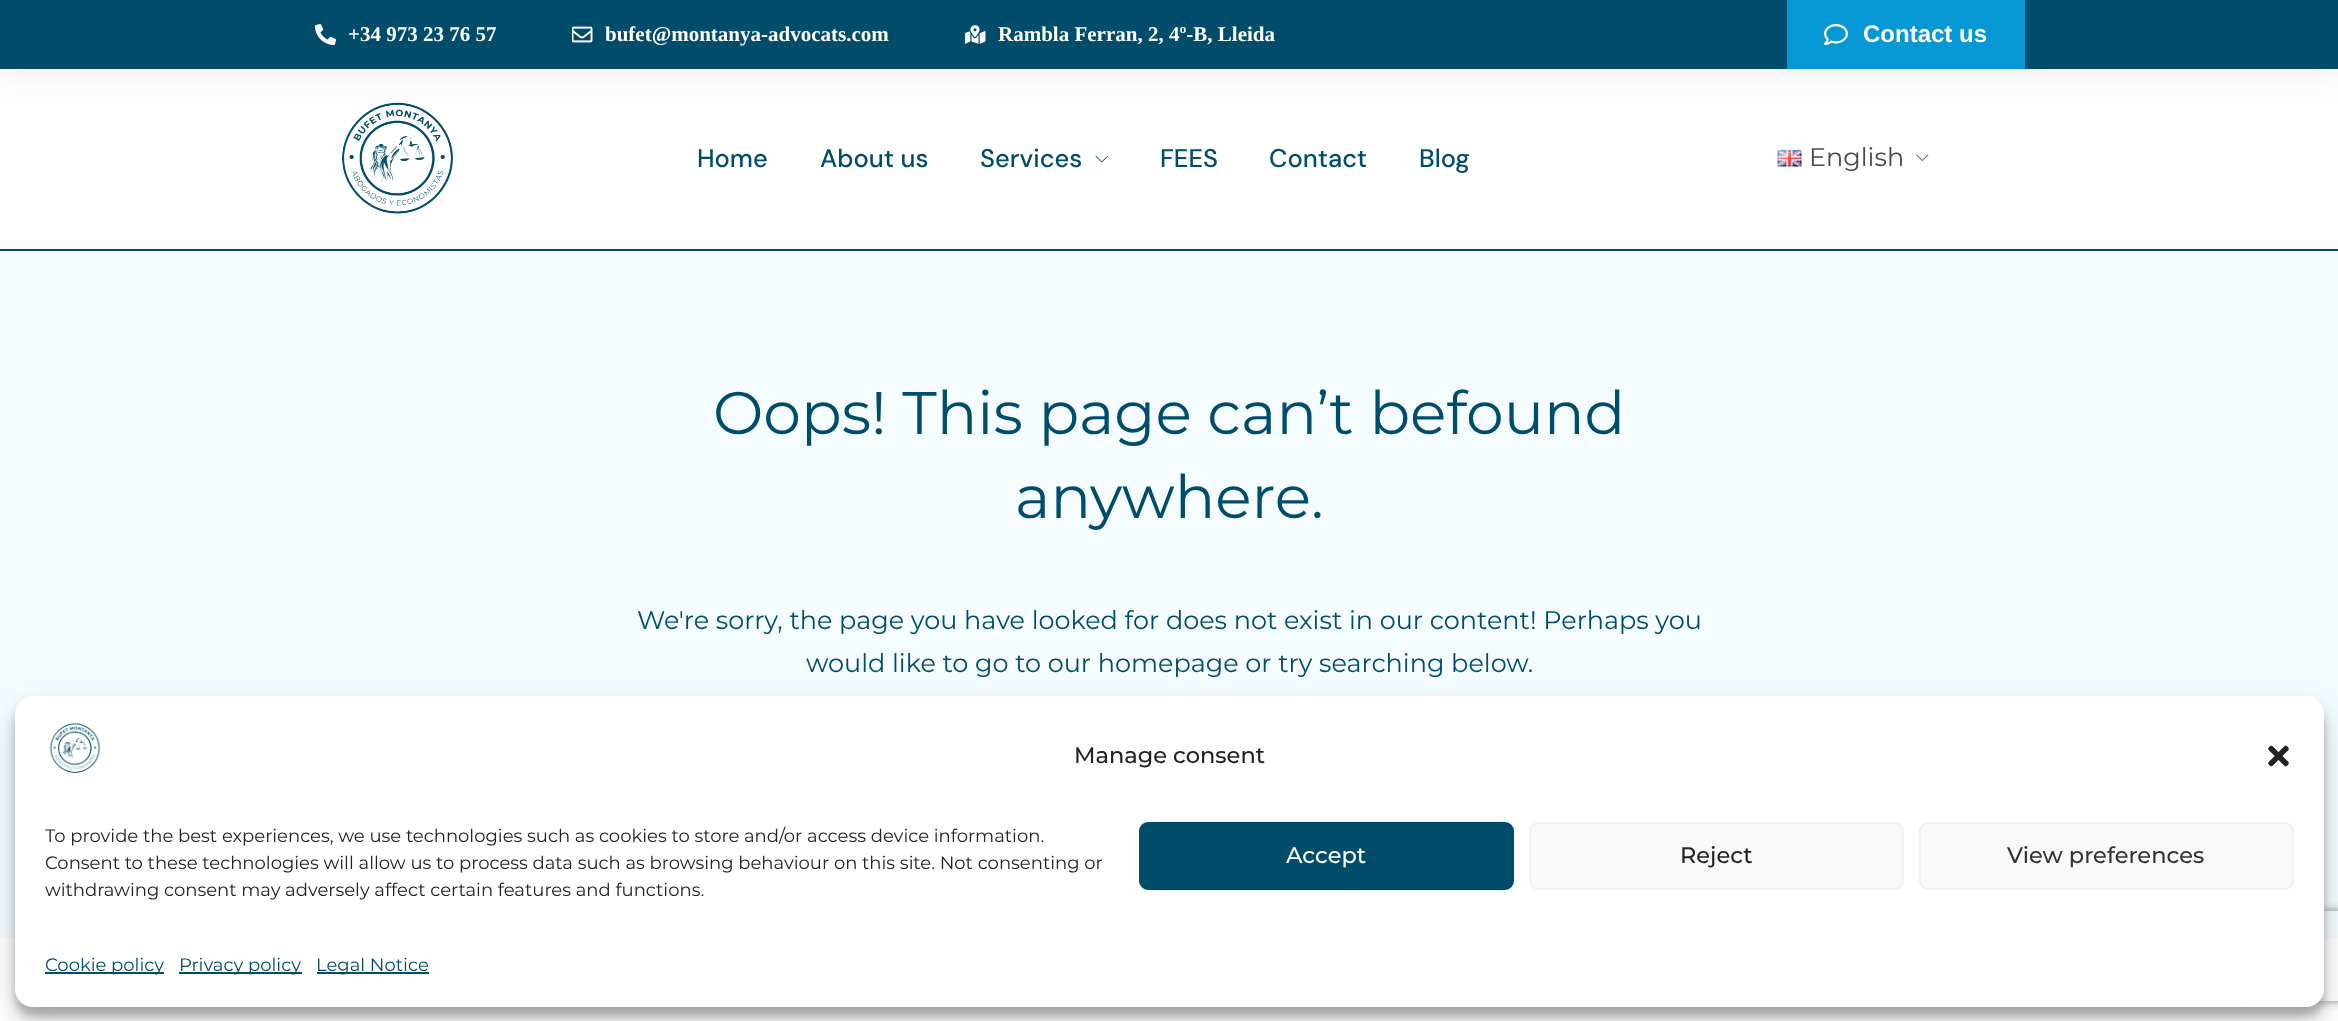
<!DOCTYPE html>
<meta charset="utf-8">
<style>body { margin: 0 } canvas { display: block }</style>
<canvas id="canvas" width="2338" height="1021"></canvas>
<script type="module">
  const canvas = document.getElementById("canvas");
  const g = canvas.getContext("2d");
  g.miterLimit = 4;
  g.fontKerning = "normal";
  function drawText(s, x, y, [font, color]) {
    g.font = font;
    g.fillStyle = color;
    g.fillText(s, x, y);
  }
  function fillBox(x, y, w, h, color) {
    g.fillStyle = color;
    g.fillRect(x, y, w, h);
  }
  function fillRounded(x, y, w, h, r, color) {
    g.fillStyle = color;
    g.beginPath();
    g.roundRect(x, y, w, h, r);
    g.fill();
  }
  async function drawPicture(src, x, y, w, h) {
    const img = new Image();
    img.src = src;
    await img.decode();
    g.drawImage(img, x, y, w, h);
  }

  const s1 = ["bold 21px Liberation Serif", "#FFFFFF"];
  const s2 = ["bold 24px Liberation Sans", "#FFFFFF"];
  const s3 = ["500 25.5px DM Sans", "#004C6B"];
  const s4 = ["25.5px Montserrat", "#4A4A4A"];
  const s5 = ["60px Montserrat", "#004C6B"];
  const s6 = ["25.5px Montserrat", "#004C6B"];
  const s7 = ["500 22.5px Montserrat", "#222222"];
  const s8 = ["18px Montserrat", "#222222"];
  const s9 = ["500 22.5px Montserrat", "#FFFFFF"];
  const s10 = ["500 22.5px Montserrat", "#333333"];
  const s11 = ["18px Montserrat", "#004C6B"];

  fillBox(0, 0, 2338, 1021, "#FFFFFF");
  fillBox(0, 251, 2338, 687, "#F4FCFF");
  await drawPicture("pic5.png", 341, 102, 112, 112);
  g.fillStyle = "rgba(0, 0, 0, 0.1)";
  g.filter = "blur(18px)";
  g.beginPath();
  g.rect(0, 0, 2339, 69);
  g.fill();
  g.filter = "none";
  fillBox(0, 0, 2338, 69, "#004C6B");
  await drawPicture("pic1.png", 315, 24, 21, 21);
  drawText("+34 973 23 76 57", 348, 41, s1);
  await drawPicture("pic2.png", 572, 26, 21, 17);
  drawText("bufet@montanya-advocats.com", 605, 41, s1);
  await drawPicture("pic3.png", 965, 25, 21, 19);
  drawText("Rambla Ferran, 2, 4º-B, Lleida", 998, 41, s1);
  fillBox(1787, 0, 238, 69, "#0598D5");
  await drawPicture("pic4.png", 1824, 24, 24, 21);
  drawText("Contact us", 1863, 42, s2);
  fillBox(0, 249, 2338, 2, "#004C6B");
  drawText("Home", 697, 167, s3);
  drawText("About us", 820, 167, s3);
  drawText("Services", 980, 167, s3);
  await drawPicture("pic6.png", 1095, 155, 13, 8);
  drawText("FEES", 1160, 167, s3);
  drawText("Contact", 1269, 167, s3);
  drawText("Blog", 1419, 167, s3);
  await drawPicture("pic7.png", 1777, 149, 25, 18);
  drawText("English", 1809, 166, s4);
  await drawPicture("pic8.png", 1916, 154, 13, 7);
  drawText("Oops! This page can’t befound", 713, 434, s5);
  drawText("anywhere.", 1015, 518, s5);
  drawText("We're sorry, the page you have looked for does not exist in our content! Perhaps you", 637, 629, s6);
  drawText("would like to go to our homepage or try searching below.", 806, 672, s6);
  g.fillStyle = "rgba(0, 0, 0, 0.23)";
  g.filter = "blur(4.5px)";
  g.beginPath();
  g.roundRect(15, 705, 2309, 311, 18);
  g.fill();
  g.filter = "none";
  g.fillStyle = "rgba(0, 0, 0, 0.19)";
  g.filter = "blur(15px)";
  g.beginPath();
  g.roundRect(15, 711, 2309, 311, 18);
  g.fill();
  g.filter = "none";
  g.save();
  g.beginPath();
  g.moveTo(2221, 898);
  g.lineTo(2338, 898);
  g.lineTo(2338, 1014);
  g.lineTo(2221, 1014);
  g.closePath();
  g.moveTo(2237, 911);
  g.lineTo(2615, 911);
  g.bezierCurveTo(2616.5, 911, 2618, 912.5, 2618, 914);
  g.lineTo(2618, 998);
  g.bezierCurveTo(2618, 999.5, 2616.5, 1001, 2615, 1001);
  g.lineTo(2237, 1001);
  g.bezierCurveTo(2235.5, 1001, 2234, 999.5, 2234, 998);
  g.lineTo(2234, 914);
  g.bezierCurveTo(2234, 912.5, 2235.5, 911, 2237, 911);
  g.closePath();
  g.clip("evenodd");
  g.fillStyle = "#808080";
  g.filter = "blur(4px)";
  g.beginPath();
  g.roundRect(2234, 911, 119, 90, 3);
  g.fill();
  g.filter = "none";
  g.restore();
  fillRounded(15, 696, 2309, 311, 18, "#FFFFFF");
  await drawPicture("pic9.png", 49, 723, 52, 50);
  drawText("Manage consent", 1074, 763, s7);
  await drawPicture("pic10.png", 2268, 745, 21, 22);
  drawText("To provide the best experiences, we use technologies such as cookies to store and/or access device information.", 45, 842, s8);
  drawText("Consent to these technologies will allow us to process data such as browsing behaviour on this site. Not consenting or", 45, 869, s8);
  drawText("withdrawing consent may adversely affect certain features and functions.", 45, 896, s8);
  g.fillStyle = "#004C6B";
  g.beginPath();
  g.roundRect(1140, 823, 373, 66, 8);
  g.fill();
  g.strokeStyle = "#004C6B";
  g.lineWidth = 2;
  g.stroke();
  drawText("Accept", 1286, 863, s9);
  g.fillStyle = "#F9F9F9";
  g.beginPath();
  g.roundRect(1530, 823, 373, 66, 8);
  g.fill();
  g.strokeStyle = "#F2F2F2";
  g.stroke();
  drawText("Reject", 1680, 863, s7);
  g.fillStyle = "#F9F9F9";
  g.beginPath();
  g.roundRect(1920, 823, 373, 66, 8);
  g.fill();
  g.stroke();
  drawText("View preferences", 2007, 863, s10);
  fillBox(45, 972, 119, 2, "#004C6B");
  drawText("Cookie policy", 45, 971, s11);
  fillBox(179, 972, 123, 2, "#004C6B");
  drawText("Privacy policy", 179, 971, s11);
  fillBox(317, 972, 112, 2, "#004C6B");
  drawText("Legal Notice", 316, 971, s11);
</script>
